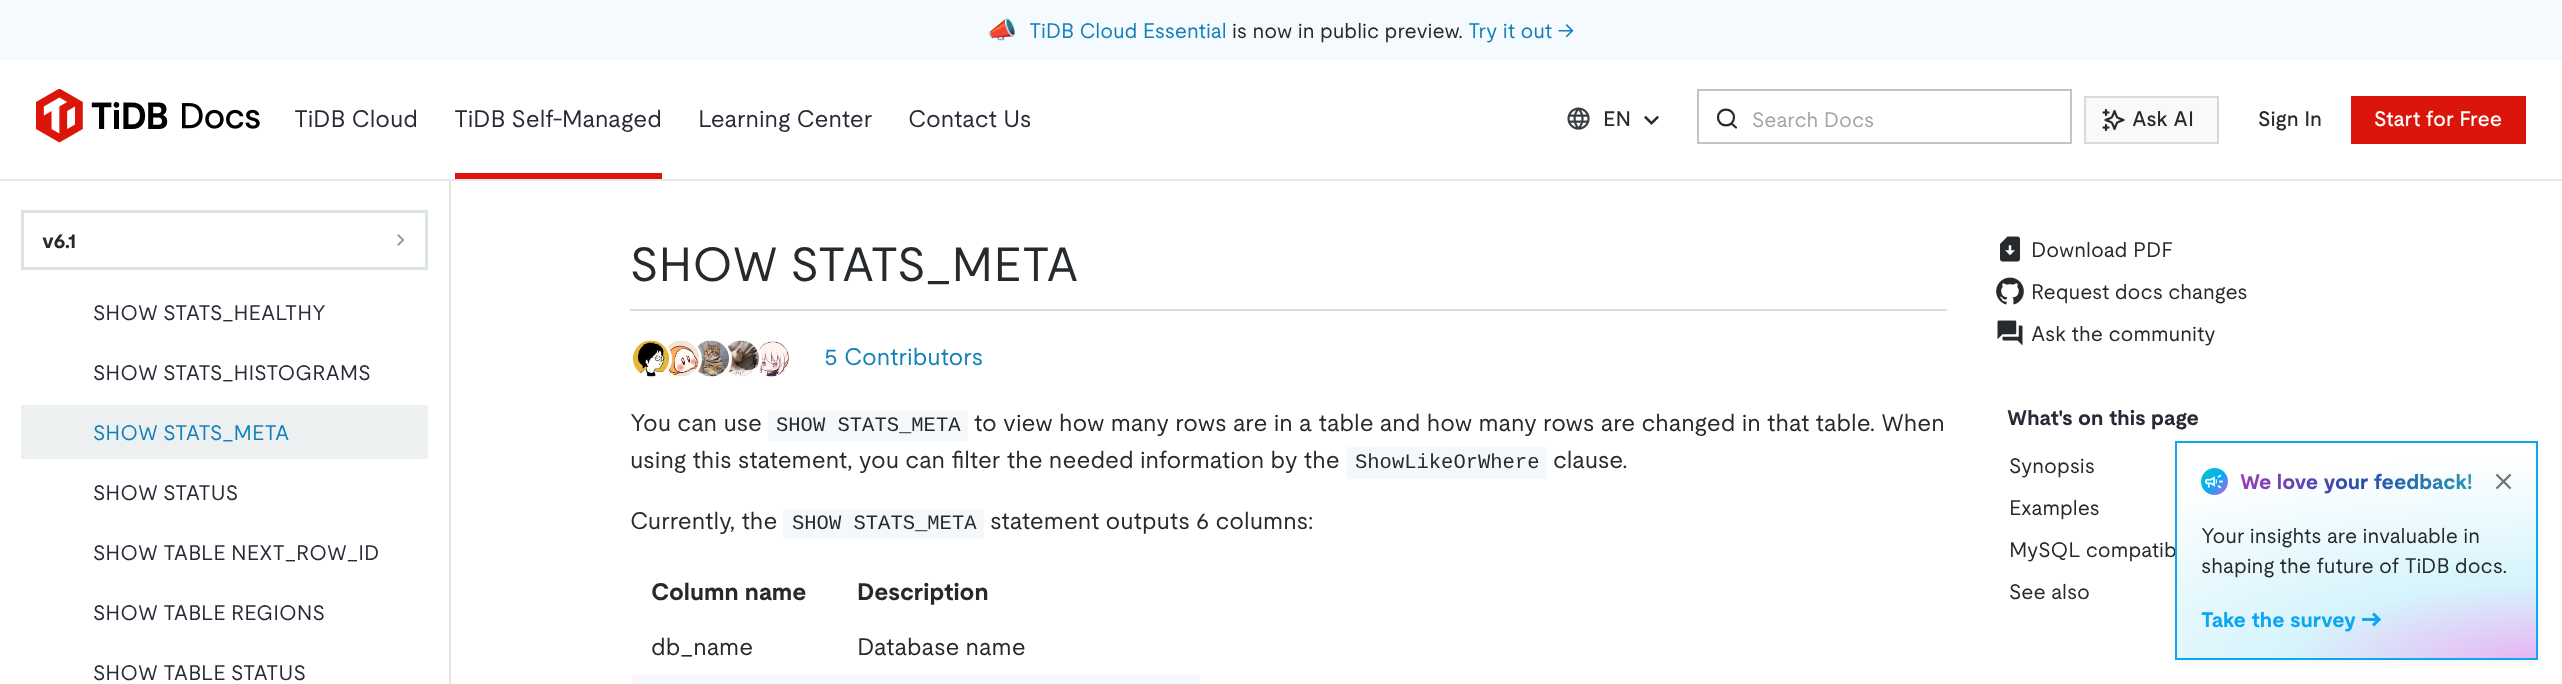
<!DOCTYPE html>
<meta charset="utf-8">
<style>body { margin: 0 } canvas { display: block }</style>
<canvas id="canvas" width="2562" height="684"></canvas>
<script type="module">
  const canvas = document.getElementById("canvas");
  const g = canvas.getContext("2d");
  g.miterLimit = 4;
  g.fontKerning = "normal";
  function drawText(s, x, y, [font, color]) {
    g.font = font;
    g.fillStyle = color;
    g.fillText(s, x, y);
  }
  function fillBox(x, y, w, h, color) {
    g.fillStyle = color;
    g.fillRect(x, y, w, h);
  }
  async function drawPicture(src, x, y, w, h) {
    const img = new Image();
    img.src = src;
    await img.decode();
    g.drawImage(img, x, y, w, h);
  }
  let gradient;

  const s1 = ["24px Noto Color Emoji", "#262A2C"];
  const s2 = ["21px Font", "#1480B8"];
  const s3 = ["21px Font", "#262A2C"];
  const s4 = ["24px Font", "#282A36"];
  const s5 = ["500 21px Font", "#262A2C"];
  const s6 = ["21px Font", "#A4A6A6"];
  const s7 = ["500 21px Font", "#FFFFFF"];
  const s8 = ["bold 21px Font", "#262A2C"];
  const s9 = ["21px Font", "#282A36"];
  const s10 = ["48px Font", "#262A2C"];
  const s11 = ["24px Font", "#1480B8"];
  const s12 = ["24px Font", "#262A2C"];
  const s13 = ["20.5px Liberation Mono", "#262A2C"];
  const s14 = ["bold 24px Font", "#262A2C"];
  const s15 = ["bold 21px Font", "#282A36"];
  const s16 = ["bold 21px Font", "#0CA6F2"];

  fillBox(0, 0, 2562, 684, "#FFFFFF");
  fillBox(0, 0, 2562, 60, "#F4FAFD");
  drawText("📣", 987, 38, s1);
  drawText("TiDB Cloud Essential", 1029, 38, s2);
  drawText("is now in public preview.", 1232, 38, s3);
  drawText("Try it out →", 1468, 38, s2);
  fillBox(449, 180, 2, 504, "#E5E4E4");
  fillBox(0, 179, 2562, 2, "#E3E8EA");
  await drawPicture("pic1.png", 36, 89, 224, 54);
  drawText("TiDB Cloud", 294, 127, s4);
  fillBox(455, 173, 207, 6, "#DC150B");
  drawText("TiDB Self-Managed", 454, 127, s4);
  drawText("Learning Center", 698, 127, s4);
  drawText("Contact Us", 908, 127, s4);
  await drawPicture("pic2.png", 1567, 107, 23, 23);
  drawText("EN", 1603, 126, s5);
  await drawPicture("pic3.png", 1644, 115, 15, 10);
  g.beginPath();
  g.moveTo(1736, 127.5);
  g.lineTo(1731.5, 123.5);
  g.moveTo(1734, 117.5);
  g.bezierCurveTo(1734, 128, 1718, 128, 1718, 117.5);
  g.bezierCurveTo(1718, 107, 1734, 107, 1734, 117.5);
  g.closePath();
  g.strokeStyle = "#262A2C";
  g.lineWidth = 2.2;
  g.lineCap = "round";
  g.lineJoin = "round";
  g.stroke();
  g.strokeStyle = "#C4C4C4";
  g.lineWidth = 2;
  g.lineJoin = "miter";
  g.strokeRect(1698, 90, 373, 53);
  drawText("Search Docs", 1752, 127, s6);
  g.fillStyle = "#F9F9F9";
  g.beginPath();
  g.rect(2085, 97, 133, 46);
  g.fill();
  g.strokeStyle = "#D9D9D9";
  g.stroke();
  await drawPicture("pic4.png", 2102, 108, 23, 24);
  drawText("Ask AI", 2132, 126, s5);
  drawText("Sign In", 2258, 126, s5);
  fillBox(2351, 96, 175, 48, "#DC150B");
  drawText("Start for Free", 2374, 126, s7);
  g.strokeStyle = "#DCE3E5";
  g.lineWidth = 3;
  g.strokeRect(22.5, 211.5, 404, 57);
  drawText("v6.1", 42, 248, s8);
  await drawPicture("pic5.png", 397, 234, 8, 12);
  drawText("SHOW STATS_HEALTHY", 93, 320, s9);
  drawText("SHOW STATS_HISTOGRAMS", 93, 380, s9);
  fillBox(21, 405, 407, 54, "#EDF0F1");
  drawText("SHOW STATS_META", 93, 440, s2);
  drawText("SHOW STATUS", 93, 500, s9);
  drawText("SHOW TABLE NEXT_ROW_ID", 93, 560, s9);
  drawText("SHOW TABLE REGIONS", 93, 620, s9);
  drawText("SHOW TABLE STATUS", 93, 680, s9);
  fillBox(630, 309, 1317, 2, "#D8DEE4");
  drawText("SHOW STATS_META", 630, 281, s10);
  await drawPicture("pic10.png", 755, 341, 34, 36);
  g.beginPath();
  g.arc(741, 359, 19.5, 0, Math.PI * 2);
  g.strokeStyle = "#FFFFFF";
  g.stroke();
  g.fillStyle = "#FFFFFF";
  g.beginPath();
  g.arc(741, 359, 18, 0, Math.PI * 2);
  g.fill();
  await drawPicture("pic9.png", 725, 340, 34, 37);
  g.beginPath();
  g.arc(711, 359, 19.5, 0, Math.PI * 2);
  g.stroke();
  g.beginPath();
  g.arc(711, 359, 18, 0, Math.PI * 2);
  g.fill();
  await drawPicture("pic8.png", 695, 340, 34, 37);
  g.beginPath();
  g.arc(681, 359, 19.5, 0, Math.PI * 2);
  g.stroke();
  g.beginPath();
  g.arc(681, 359, 18, 0, Math.PI * 2);
  g.fill();
  await drawPicture("pic7.png", 665, 340, 34, 37);
  g.beginPath();
  g.arc(651, 359, 19.5, 0, Math.PI * 2);
  g.stroke();
  g.beginPath();
  g.arc(651, 359, 18, 0, Math.PI * 2);
  g.fill();
  await drawPicture("pic6.png", 633, 340, 36, 37);
  drawText("5 Contributors", 824, 365, s11);
  drawText("You can use", 630, 431, s12);
  fillBox(768, 411, 200, 30, "#F5F8FA");
  drawText("SHOW STATS_META", 776, 431, s13);
  drawText("to view how many rows are in a table and how many rows are changed in that table. When", 974, 431, s12);
  drawText("using this statement, you can filter the needed information by the", 630, 468, s12);
  fillBox(1347, 447, 200, 32, "#F5F8FA");
  drawText("ShowLikeOrWhere", 1355, 468, s13);
  drawText("clause.", 1553, 468, s12);
  drawText("Currently, the", 630, 529, s12);
  fillBox(783, 509, 201, 30, "#F5F8FA");
  drawText("SHOW STATS_META", 792, 529, s13);
  drawText("statement outputs 6 columns:", 990, 529, s12);
  drawText("Column name", 651, 600, s14);
  drawText("Description", 857, 600, s14);
  drawText("db_name", 651, 655, s12);
  drawText("Database name", 857, 655, s12);
  fillBox(632, 675, 568, 9, "#F6F8FA");
  await drawPicture("pic11.png", 2000, 236, 20, 26);
  drawText("Download PDF", 2031, 257, s3);
  await drawPicture("pic12.png", 1996, 277, 28, 28);
  drawText("Request docs changes", 2031, 299, s3);
  await drawPicture("pic13.png", 1997, 320, 26, 26);
  drawText("Ask the community", 2031, 341, s3);
  drawText("What's on this page", 2007, 425, s15);
  drawText("Synopsis", 2009, 473, s3);
  drawText("Examples", 2009, 515, s3);
  drawText("MySQL compatib", 2009, 557, s3);
  drawText("See also", 2009, 599, s3);
  g.fillStyle = "rgba(0, 0, 0, 0.04)";
  g.filter = "blur(3px)";
  g.beginPath();
  g.rect(2175, 444, 363, 219);
  g.fill();
  g.filter = "none";
  gradient = g.createRadialGradient(2543, 2074.55, 0, 2543, 2074.55, 652);
  gradient.addColorStop(0, "#E9B0F3");
  gradient.addColorStop(0.39, "#D6F4FC");
  gradient.addColorStop(1, "#FFFFFF");
  g.fillStyle = gradient;
  g.beginPath();
  g.rect(2177, 443, 359, 215);
  g.save();
  g.clip();
  g.scale(1, 209 / 652);
  g.fillRect(0, 0, 2562, 2134);
  g.restore();
  g.strokeStyle = "#0CA6F2";
  g.lineWidth = 2;
  g.strokeRect(2176, 442, 361, 217);
  gradient = g.createLinearGradient(2201, 468, 2228, 495);
  gradient.addColorStop(0, "#0FC7C7");
  gradient.addColorStop(0.5, "#00AEEF");
  gradient.addColorStop(1, "#CA5AF0");
  g.fillStyle = gradient;
  g.beginPath();
  g.arc(2214.5, 481.5, 13.5, 0, Math.PI * 2);
  g.fill();
  await drawPicture("pic14.png", 2205, 474, 18, 15);
  g.font = "bold 21px Font";
  gradient = g.createLinearGradient(2240, 482, 2483, 482);
  gradient.addColorStop(0, "#9A3CBB");
  gradient.addColorStop(0.5, "#284DAB");
  gradient.addColorStop(1, "#2D9BB7");
  g.fillStyle = gradient;
  g.fillText("We love your feedback!", 2240, 489);
  await drawPicture("pic15.png", 2495, 473, 17, 17);
  drawText("Your insights are invaluable in", 2201, 543, s3);
  drawText("shaping the future of TiDB docs.", 2201, 573, s3);
  drawText("Take the survey", 2201, 627, s16);
  await drawPicture("pic16.png", 2362, 612, 20, 15);
</script>
